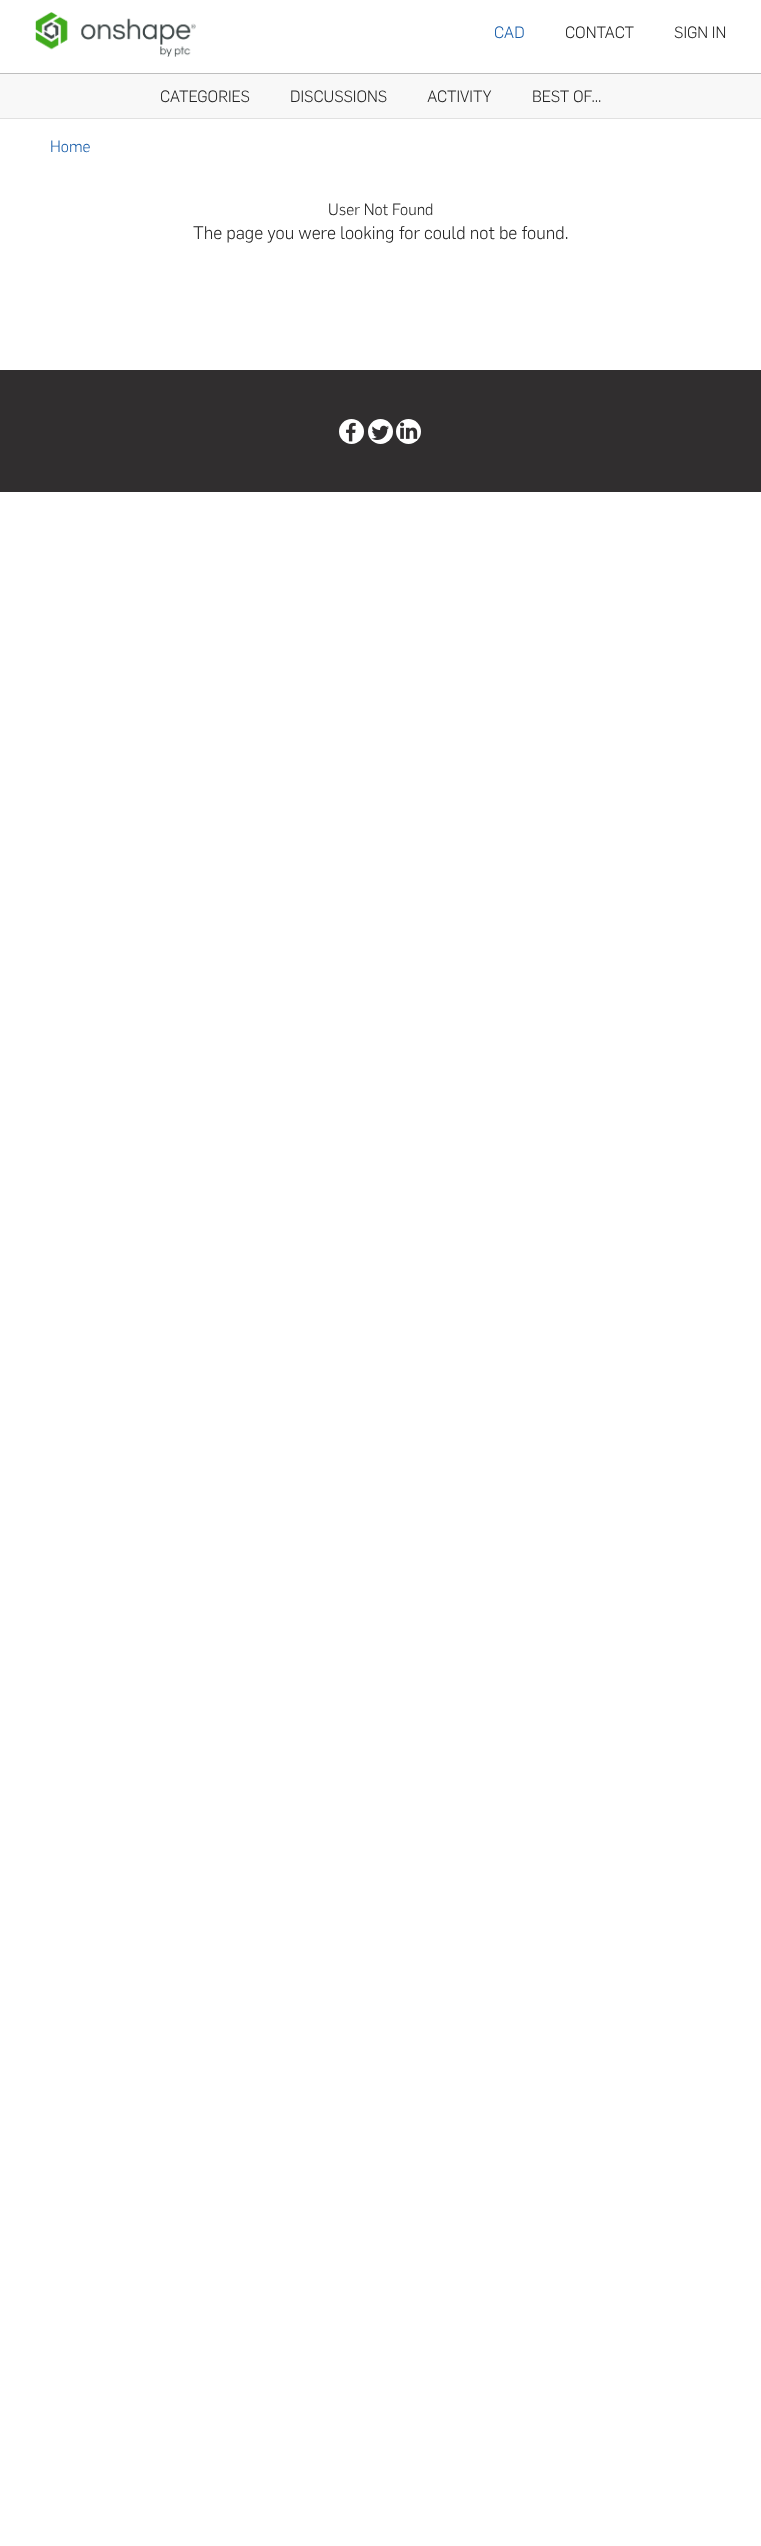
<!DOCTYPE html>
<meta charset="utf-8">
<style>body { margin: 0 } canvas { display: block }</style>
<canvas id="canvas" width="761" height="2546"></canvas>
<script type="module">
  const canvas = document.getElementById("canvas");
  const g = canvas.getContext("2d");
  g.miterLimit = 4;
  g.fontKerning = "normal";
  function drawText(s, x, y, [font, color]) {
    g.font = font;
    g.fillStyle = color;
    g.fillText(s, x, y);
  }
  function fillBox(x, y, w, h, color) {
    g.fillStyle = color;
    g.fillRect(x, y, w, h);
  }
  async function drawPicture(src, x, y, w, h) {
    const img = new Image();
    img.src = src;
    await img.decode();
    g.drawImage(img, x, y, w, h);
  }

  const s1 = ["300 16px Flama", "#1B5FAA"];
  const s2 = ["300 16px Flama", "#242424"];
  const s3 = ["300 18px Flama", "#242424"];

  fillBox(0, 0, 761, 2546, "#FFFFFF");
  fillBox(0, 73, 761, 1, "#BEBEBE");
  await drawPicture("pic1.png", 35, 12, 161, 45);
  drawText("CAD", 494, 38, s1);
  drawText("CONTACT", 565, 38, s2);
  drawText("SIGN IN", 674, 38, s2);
  fillBox(0, 74, 761, 44, "#F8F8F8");
  fillBox(0, 118, 761, 1, "#E1E1E1");
  drawText("CATEGORIES", 160, 102, s2);
  drawText("DISCUSSIONS", 290, 102, s2);
  drawText("ACTIVITY", 427, 102, s2);
  drawText("BEST OF...", 532, 102, s2);
  drawText("Home", 50, 152, s1);
  drawText("User Not Found", 328, 215, s2);
  drawText("The page you were looking for could not be found.", 193, 239, s3);
  fillBox(0, 370, 761, 122, "#302E2F");
  g.fillStyle = "#FFFFFF";
  g.beginPath();
  g.arc(351.5, 431.5, 12.5, 0, Math.PI * 2);
  g.fill();
  await drawPicture("pic2.png", 346, 422, 10, 20);
  g.beginPath();
  g.arc(380.5, 431.5, 12.5, 0, Math.PI * 2);
  g.fill();
  await drawPicture("pic3.png", 371, 425, 18, 15);
  g.beginPath();
  g.arc(408.5, 431.5, 12.5, 0, Math.PI * 2);
  g.fill();
  await drawPicture("pic4.png", 400, 422, 18, 17);
</script>
